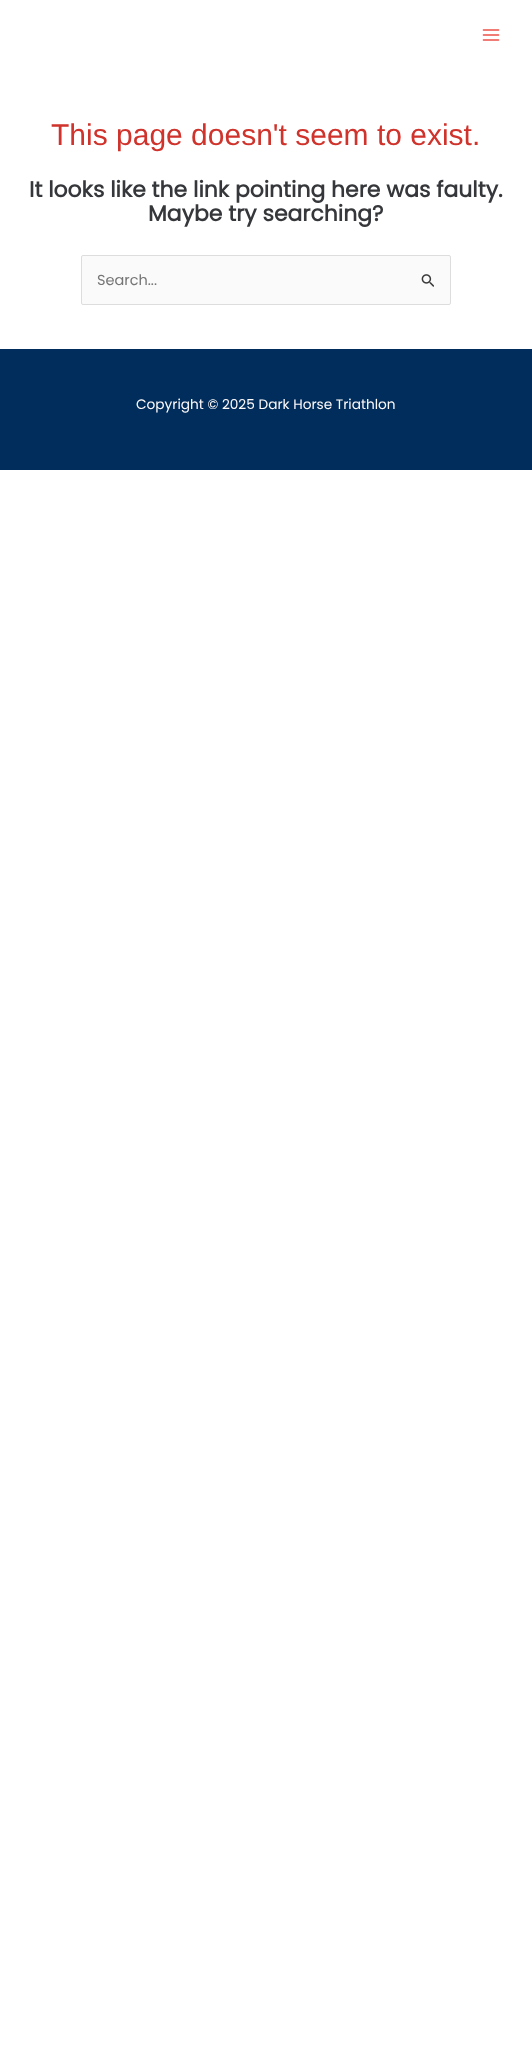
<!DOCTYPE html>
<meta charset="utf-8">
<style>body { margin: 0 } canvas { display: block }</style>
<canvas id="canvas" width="532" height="2057"></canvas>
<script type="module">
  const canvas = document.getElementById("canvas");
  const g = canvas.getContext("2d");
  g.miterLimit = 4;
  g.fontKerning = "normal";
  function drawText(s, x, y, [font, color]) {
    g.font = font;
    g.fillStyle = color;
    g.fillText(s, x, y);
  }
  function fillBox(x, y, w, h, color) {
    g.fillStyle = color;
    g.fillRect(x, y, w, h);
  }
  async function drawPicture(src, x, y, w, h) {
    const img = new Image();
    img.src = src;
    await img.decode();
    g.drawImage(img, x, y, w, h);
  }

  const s1 = ["30px Liberation Sans", "#CF332B"];
  const s2 = ["bold 21.9px Poppins", "#35373A"];
  const s3 = ["14.5px Poppins", "#757575"];
  const s4 = ["13.7px Poppins", "#FEFAFA"];

  fillBox(0, 0, 532, 2057, "#FFFFFF");
  await drawPicture("pic1.png", 482, 29, 18, 12);
  drawText("This page doesn't seem to exist.", 51, 145, s1);
  drawText("It looks like the link pointing here was faulty.", 29, 197, s2);
  drawText("Maybe try searching?", 148, 221, s2);
  g.fillStyle = "#FAFAFA";
  g.beginPath();
  g.roundRect(81.5, 255.5, 369, 49, 1.5);
  g.fill();
  g.strokeStyle = "#DDDDDD";
  g.stroke();
  drawText("Search...", 97, 285, s3);
  await drawPicture("pic2.png", 421, 274, 13, 13);
  fillBox(0, 349, 532, 121, "#002D5B");
  drawText("Copyright © 2025 Dark Horse Triathlon", 136, 409, s4);
</script>
